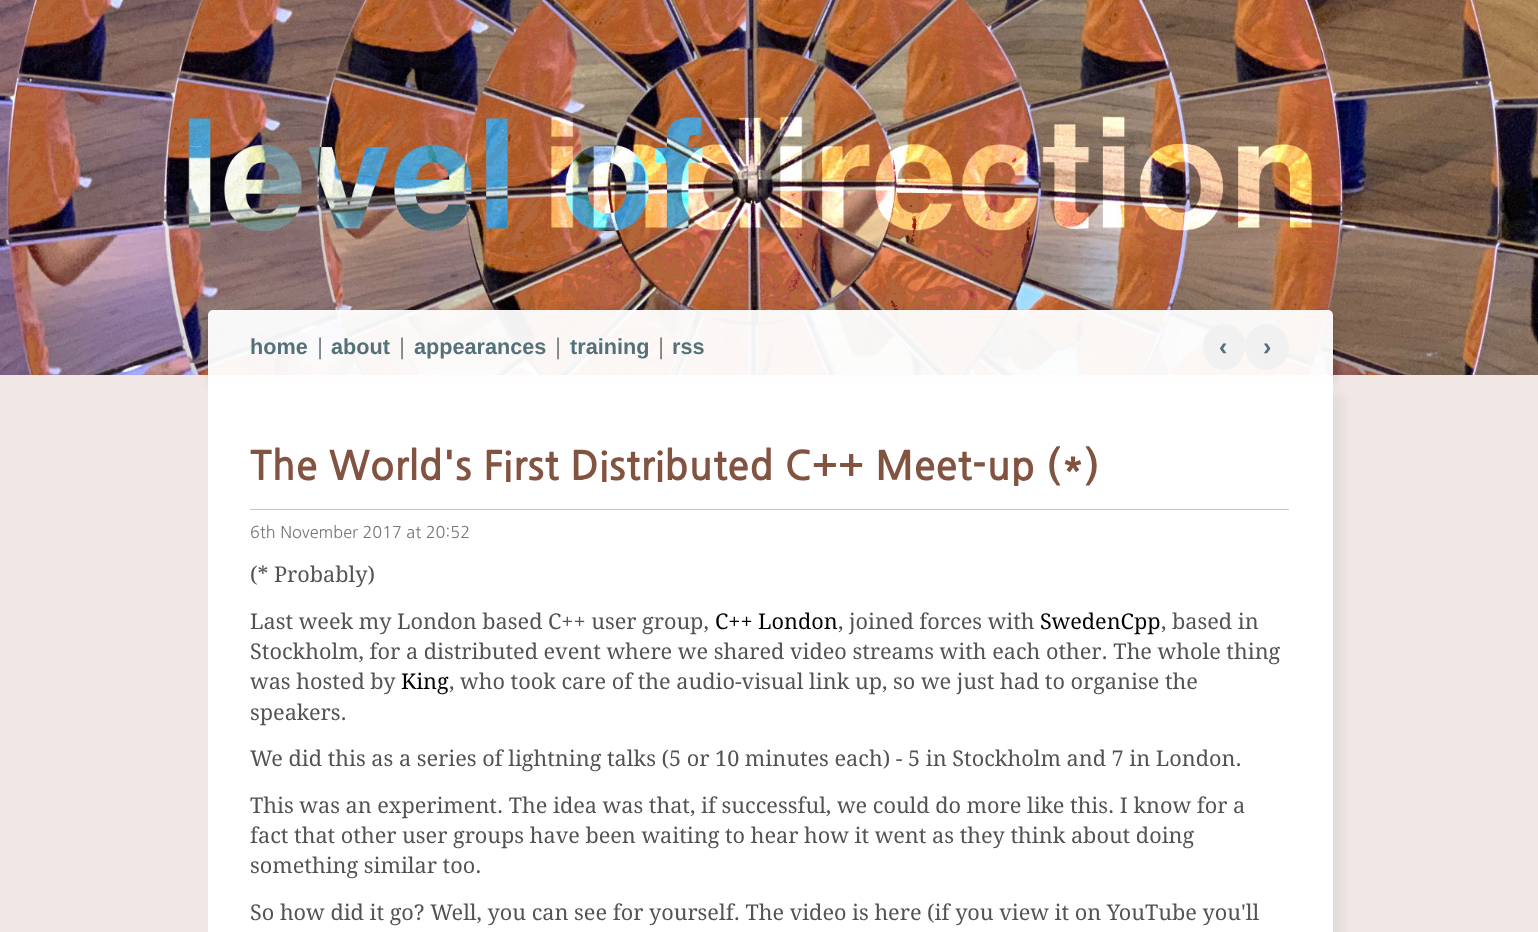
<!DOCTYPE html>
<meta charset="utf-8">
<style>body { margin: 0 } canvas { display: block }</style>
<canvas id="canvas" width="1538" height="932"></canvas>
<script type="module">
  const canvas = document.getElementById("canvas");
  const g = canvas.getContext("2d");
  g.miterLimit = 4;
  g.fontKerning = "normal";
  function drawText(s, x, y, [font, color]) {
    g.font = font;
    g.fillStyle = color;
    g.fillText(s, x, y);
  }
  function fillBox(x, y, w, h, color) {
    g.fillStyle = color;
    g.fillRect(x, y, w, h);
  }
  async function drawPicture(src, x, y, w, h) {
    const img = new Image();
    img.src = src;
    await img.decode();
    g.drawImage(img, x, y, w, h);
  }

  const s1 = ["bold 21.65px Liberation Sans", "#54717A"];
  const s2 = ["21.65px Droid Serif", "#535353"];
  const s3 = ["bold 25px Liberation Sans", "#54717A"];
  const s4 = ["bold 40px NanumGothic", "#825341"];
  const s5 = ["16.25px NanumGothic", "#777777"];
  const s6 = ["21.65px Droid Serif", "#000000"];

  fillBox(0, 0, 1538, 932, "#F1E8E6");
  await drawPicture("pic1.png", 0, 0, 1538, 375);
  g.save();
  g.beginPath();
  g.moveTo(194, 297);
  g.lineTo(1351, 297);
  g.lineTo(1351, 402);
  g.lineTo(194, 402);
  g.closePath();
  g.moveTo(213, 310);
  g.lineTo(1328, 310);
  g.bezierCurveTo(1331, 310, 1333, 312, 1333, 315);
  g.lineTo(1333, 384);
  g.lineTo(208, 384);
  g.lineTo(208, 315);
  g.bezierCurveTo(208, 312, 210, 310, 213, 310);
  g.closePath();
  g.clip("evenodd");
  g.fillStyle = "rgba(0, 0, 0, 0.1)";
  g.filter = "blur(5px)";
  g.beginPath();
  g.roundRect(210, 313, 1125, 73, 5);
  g.fill();
  g.filter = "none";
  g.restore();
  g.fillStyle = "rgba(255, 255, 255, 0.95)";
  g.beginPath();
  g.roundRect(208, 310, 1125, 74, [5, 5, 0, 0]);
  g.fill();
  drawText("home", 250, 354, s1);
  drawText("|", 314, 354, s2);
  drawText("about", 331, 354, s1);
  drawText("|", 396, 354, s2);
  drawText("appearances", 414, 354, s1);
  drawText("|", 552, 354, s2);
  drawText("training", 570, 354, s1);
  drawText("|", 655, 354, s2);
  drawText("rss", 672, 354, s1);
  g.fillStyle = "#F1F1F1";
  g.beginPath();
  g.ellipse(1224, 347, 21, 23, 0, 0, Math.PI * 2);
  g.fill();
  drawText("‹", 1219, 355, s3);
  g.fillStyle = "#F1F1F1";
  g.beginPath();
  g.ellipse(1267, 347, 22, 23, 0, 0, Math.PI * 2);
  g.fill();
  drawText("›", 1263, 355, s3);
  g.fillStyle = "rgba(0, 0, 0, 0.05)";
  g.filter = "blur(5px)";
  g.beginPath();
  g.roundRect(218, 394, 1125, 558, 5);
  g.fill();
  g.filter = "none";
  fillBox(208, 384, 1125, 548, "#FFFFFF");
  drawText("The World's First Distributed C++ Meet-up (*)", 250, 480, s4);
  fillBox(250, 509, 1039, 1, "#CFC2C3");
  drawText("6th November 2017 at 20:52", 250, 538, s5);
  drawText("(* Probably)", 250, 582, s2);
  drawText("Last week my London based C++ user group,", 250, 629, s2);
  drawText("C++ London", 715, 629, s6);
  drawText(", joined forces with", 838, 629, s2);
  drawText("SwedenCpp", 1040, 629, s6);
  drawText(", based in", 1161, 629, s2);
  drawText("Stockholm, for a distributed event where we shared video streams with each other. The whole thing", 250, 659, s2);
  drawText("was hosted by", 250, 689, s2);
  drawText("King", 401, 689, s6);
  drawText(", who took care of the audio-visual link up, so we just had to organise the", 449, 689, s2);
  drawText("speakers.", 250, 720, s2);
  drawText("We did this as a series of lightning talks (5 or 10 minutes each) - 5 in Stockholm and 7 in London.", 250, 766, s2);
  drawText("This was an experiment. The idea was that, if successful, we could do more like this. I know for a", 250, 813, s2);
  drawText("fact that other user groups have been waiting to hear how it went as they think about doing", 250, 843, s2);
  drawText("something similar too.", 250, 873, s2);
  drawText("So how did it go? Well, you can see for yourself. The video is here (if you view it on YouTube you'll", 250, 920, s2);
</script>
